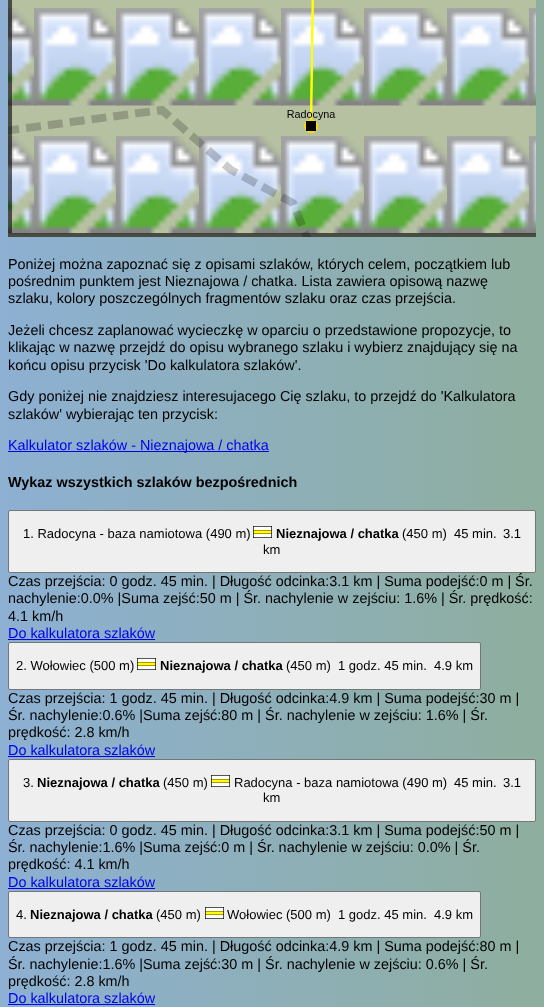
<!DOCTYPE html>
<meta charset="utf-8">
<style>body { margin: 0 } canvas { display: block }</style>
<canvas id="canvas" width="544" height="1007"></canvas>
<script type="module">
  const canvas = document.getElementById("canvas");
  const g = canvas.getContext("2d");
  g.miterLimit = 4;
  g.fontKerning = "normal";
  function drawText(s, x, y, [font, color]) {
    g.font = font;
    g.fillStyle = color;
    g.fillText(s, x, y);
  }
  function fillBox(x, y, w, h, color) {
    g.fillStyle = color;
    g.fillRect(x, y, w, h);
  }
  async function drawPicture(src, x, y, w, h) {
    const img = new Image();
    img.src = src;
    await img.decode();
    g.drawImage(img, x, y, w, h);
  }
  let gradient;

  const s1 = ["14.4px Liberation Sans", "#000000"];
  const s2 = ["14.4px Liberation Sans", "#0000EE"];
  const s3 = ["bold 14.4px Liberation Sans", "#000000"];
  const s4 = ["13px Liberation Sans", "#000000"];
  const s5 = ["bold 13px Liberation Sans", "#000000"];

  fillBox(0, 0, 544, 1007, "#FFFFFF");
  gradient = g.createLinearGradient(0, -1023, 544, -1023);
  gradient.addColorStop(0, "#8DB0D3");
  gradient.addColorStop(1, "#8EAE9E");
  g.fillStyle = gradient;
  g.fillRect(0, 0, 544, 1007);
  fillBox(8, 0, 528, 237, "#B6C1A2");
  await drawPicture("pic1.png", 8, 0, 528, 237);
  drawText("Poniżej można zapoznać się z opisami szlaków, których celem, początkiem lub", 8, 269, s1);
  drawText("pośrednim punktem jest Nieznajowa / chatka. Lista zawiera opisową nazwę", 8, 286, s1);
  drawText("szlaku, kolory poszczególnych fragmentów szlaku oraz czas przejścia.", 8, 303, s1);
  drawText("Jeżeli chcesz zaplanować wycieczkę w oparciu o przedstawione propozycje, to", 8, 335, s1);
  drawText("klikając w nazwę przejdź do opisu wybranego szlaku i wybierz znajdujący się na", 8, 352, s1);
  drawText("końcu opisu przycisk 'Do kalkulatora szlaków'.", 8, 370, s1);
  drawText("Gdy poniżej nie znajdziesz interesujacego Cię szlaku, to przejdź do 'Kalkulatora", 8, 401, s1);
  drawText("szlaków' wybierając ten przycisk:", 8, 419, s1);
  fillBox(8, 451, 261, 1, "#0000EE");
  drawText("Kalkulator szlaków - Nieznajowa / chatka", 8, 450, s2);
  drawText("Wykaz wszystkich szlaków bezpośrednich", 8, 487, s3);
  g.fillStyle = "#EFEFEF";
  g.beginPath();
  g.roundRect(8.5, 510.5, 527, 62, 1.5);
  g.fill();
  g.strokeStyle = "#767676";
  g.stroke();
  drawText("1. Radocyna - baza namiotowa (490 m)", 23, 538, s4);
  await drawPicture("pic2.png", 253, 526, 19, 12);
  drawText("Nieznajowa / chatka", 276, 538, s5);
  drawText("(450 m)", 402, 538, s4);
  drawText("45 min.", 454, 538, s4);
  drawText("3.1", 503, 538, s4);
  drawText("km", 263, 554, s4);
  drawText("Czas przejścia: 0 godz. 45 min. | Długość odcinka:3.1 km | Suma podejść:0 m | Śr.", 8, 586, s1);
  drawText("nachylenie:0.0% |Suma zejść:50 m | Śr. nachylenie w zejściu: 1.6% | Śr. prędkość:", 8, 603, s1);
  drawText("4.1 km/h", 8, 621, s1);
  drawText("Do kalkulatora szlaków", 8, 638, s2);
  fillBox(8, 639, 147, 1, "#0000EE");
  g.fillStyle = "#EFEFEF";
  g.beginPath();
  g.roundRect(8.5, 642.5, 472, 47, 1.5);
  g.fill();
  g.stroke();
  drawText("2. Wołowiec (500 m)", 16, 670, s4);
  await drawPicture("pic2.png", 137, 658, 19, 12);
  drawText("Nieznajowa / chatka", 160, 670, s5);
  drawText("(450 m)", 286, 670, s4);
  drawText("1 godz. 45 min.", 338, 670, s4);
  drawText("4.9 km", 434, 670, s4);
  drawText("Czas przejścia: 1 godz. 45 min. | Długość odcinka:4.9 km | Suma podejść:30 m |", 8, 703, s1);
  drawText("Śr. nachylenie:0.6% |Suma zejść:80 m | Śr. nachylenie w zejściu: 1.6% | Śr.", 8, 720, s1);
  drawText("prędkość: 2.8 km/h", 8, 737, s1);
  drawText("Do kalkulatora szlaków", 8, 755, s2);
  fillBox(8, 756, 147, 1, "#0000EE");
  g.fillStyle = "#EFEFEF";
  g.beginPath();
  g.roundRect(8.5, 759.5, 527, 62, 1.5);
  g.fill();
  g.stroke();
  drawText("3.", 23, 787, s4);
  drawText("Nieznajowa / chatka", 37, 787, s5);
  drawText("(450 m)", 163, 787, s4);
  await drawPicture("pic2.png", 211, 775, 19, 12);
  drawText("Radocyna - baza namiotowa (490 m)", 234, 787, s4);
  drawText("45 min.", 454, 787, s4);
  drawText("3.1", 503, 787, s4);
  drawText("km", 263, 802, s4);
  drawText("Czas przejścia: 0 godz. 45 min. | Długość odcinka:3.1 km | Suma podejść:50 m |", 8, 835, s1);
  drawText("Śr. nachylenie:1.6% |Suma zejść:0 m | Śr. nachylenie w zejściu: 0.0% | Śr.", 8, 852, s1);
  drawText("prędkość: 4.1 km/h", 8, 869, s1);
  drawText("Do kalkulatora szlaków", 8, 887, s2);
  fillBox(8, 888, 147, 1, "#0000EE");
  g.fillStyle = "#EFEFEF";
  g.beginPath();
  g.roundRect(8.5, 891.5, 472, 46, 1.5);
  g.fill();
  g.stroke();
  drawText("4.", 16, 919, s4);
  drawText("Nieznajowa / chatka", 30, 919, s5);
  drawText("(450 m)", 156, 919, s4);
  await drawPicture("pic2.png", 205, 907, 19, 12);
  drawText("Wołowiec (500 m)", 227, 919, s4);
  drawText("1 godz. 45 min.", 338, 919, s4);
  drawText("4.9 km", 434, 919, s4);
  drawText("Czas przejścia: 1 godz. 45 min. | Długość odcinka:4.9 km | Suma podejść:80 m |", 8, 951, s1);
  drawText("Śr. nachylenie:1.6% |Suma zejść:30 m | Śr. nachylenie w zejściu: 0.6% | Śr.", 8, 969, s1);
  drawText("prędkość: 2.8 km/h", 8, 986, s1);
  drawText("Do kalkulatora szlaków", 8, 1003, s2);
  fillBox(8, 1004, 147, 1, "#0000EE");
</script>
